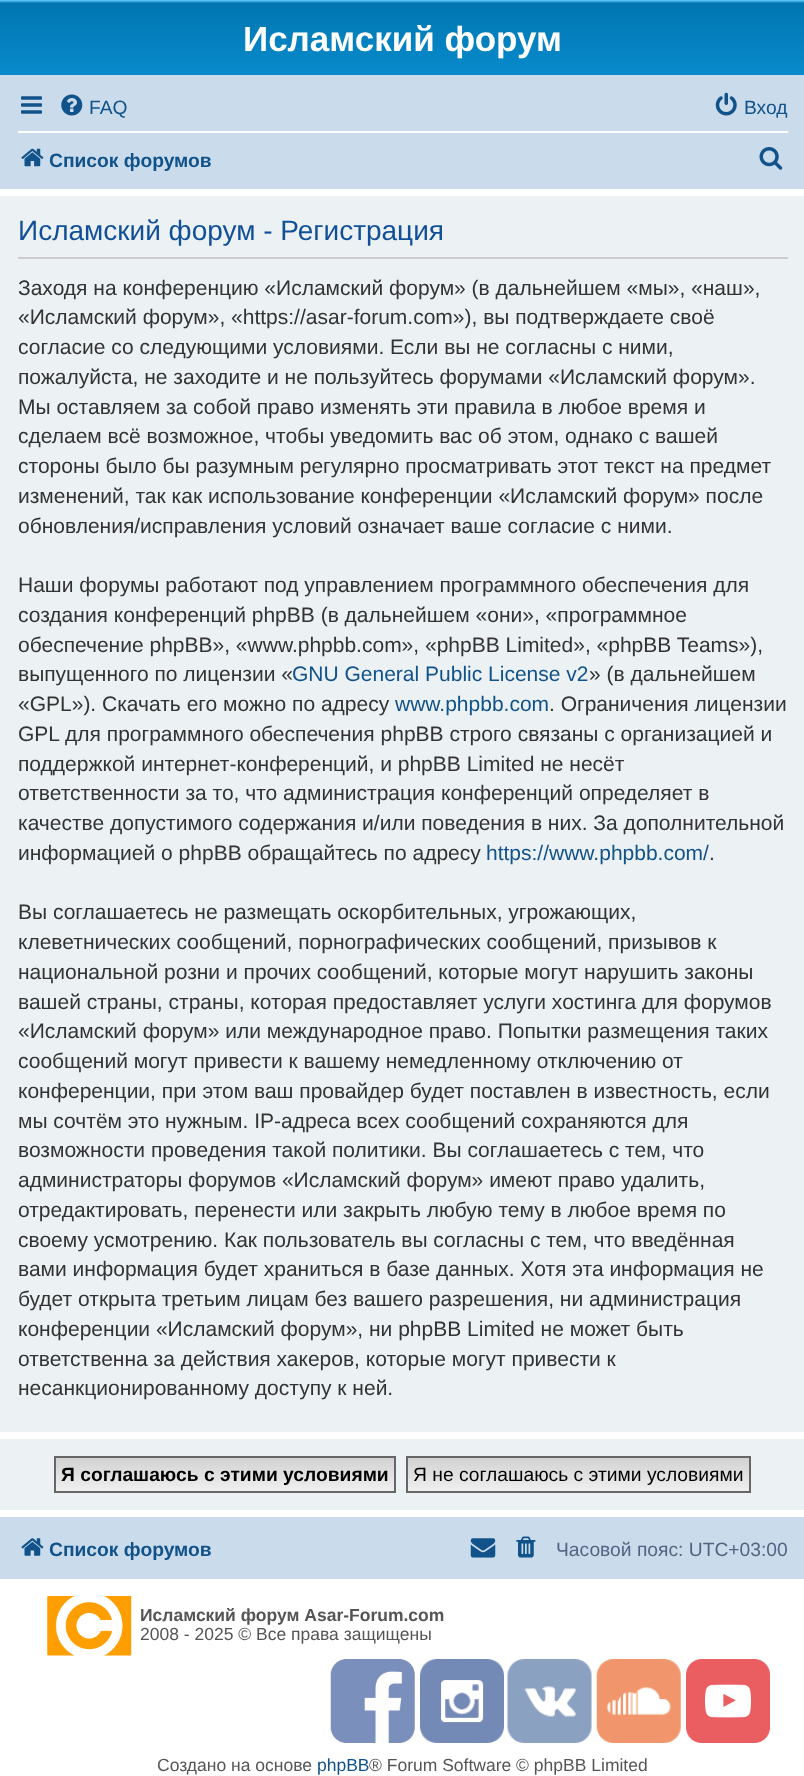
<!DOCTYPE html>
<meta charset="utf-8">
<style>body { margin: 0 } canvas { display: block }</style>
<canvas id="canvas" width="804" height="1776"></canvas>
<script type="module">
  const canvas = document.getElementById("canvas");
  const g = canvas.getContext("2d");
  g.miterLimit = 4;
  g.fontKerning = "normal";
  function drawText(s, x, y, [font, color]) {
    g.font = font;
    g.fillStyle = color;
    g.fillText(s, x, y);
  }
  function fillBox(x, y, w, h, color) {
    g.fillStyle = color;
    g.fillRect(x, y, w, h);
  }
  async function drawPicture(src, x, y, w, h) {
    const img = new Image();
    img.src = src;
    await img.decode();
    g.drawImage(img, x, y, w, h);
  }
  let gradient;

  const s1 = ["bold 35px Liberation Sans", "#FFFFFF"];
  const s2 = ["19.25px Liberation Sans", "#105289"];
  const s3 = ["bold 19.25px Liberation Sans", "#105289"];
  const s4 = ["28px Liberation Sans", "#115098"];
  const s5 = ["21px Liberation Sans", "#333333"];
  const s6 = ["21px Liberation Sans", "#105289"];
  const s7 = ["bold 19.25px Liberation Sans", "#000000"];
  const s8 = ["19.25px Liberation Sans", "#000000"];
  const s9 = ["19.25px Liberation Sans", "#536482"];
  const s10 = ["bold 17.5px Liberation Sans", "#555555"];
  const s11 = ["17.5px Liberation Sans", "#555555"];
  const s12 = ["17.5px Liberation Sans", "#105289"];

  fillBox(0, 0, 804, 1776, "#FFFFFF");
  gradient = g.createLinearGradient(403, 0, 403, 161);
  gradient.addColorStop(0, "#6ACEFF");
  gradient.addColorStop(0.02, "#0076B1");
  gradient.addColorStop(1, "#12A3EB");
  g.fillStyle = gradient;
  g.fillRect(0, 0, 804, 75);
  drawText("Исламский форум", 243, 51, s1);
  fillBox(0, 75, 804, 114, "#CADCEB");
  await drawPicture("pic1.png", 21, 96, 21, 18);
  await drawPicture("pic2.png", 61, 94, 22, 22);
  drawText("FAQ", 89, 114, s2);
  await drawPicture("pic3.png", 715, 92, 22, 24);
  drawText("Вход", 744, 114, s2);
  fillBox(18, 131, 770, 2, "#FFFFFF");
  await drawPicture("pic4.png", 21, 148, 23, 19);
  drawText("Список форумов", 49, 167, s3);
  await drawPicture("pic5.png", 759, 147, 24, 23);
  fillBox(0, 196, 804, 1236, "#ECF1F3");
  fillBox(18, 257, 770, 2, "#CCCCCC");
  drawText("Исламский форум - Регистрация", 18, 240, s4);
  drawText("Заходя на конференцию «Исламский форум» (в дальнейшем «мы», «наш»,", 18, 295, s5);
  drawText("«Исламский форум», «https://asar-forum.com»), вы подтверждаете своё", 18, 324, s5);
  drawText("согласие со следующими условиями. Если вы не согласны с ними,", 18, 354, s5);
  drawText("пожалуйста, не заходите и не пользуйтесь форумами «Исламский форум».", 18, 384, s5);
  drawText("Мы оставляем за собой право изменять эти правила в любое время и", 18, 414, s5);
  drawText("сделаем всё возможное, чтобы уведомить вас об этом, однако с вашей", 18, 443, s5);
  drawText("стороны было бы разумным регулярно просматривать этот текст на предмет", 18, 473, s5);
  drawText("изменений, так как использование конференции «Исламский форум» после", 18, 503, s5);
  drawText("обновления/исправления условий означает ваше согласие с ними.", 18, 533, s5);
  drawText("Наши форумы работают под управлением программного обеспечения для", 18, 592, s5);
  drawText("создания конференций phpBB (в дальнейшем «они», «программное", 18, 622, s5);
  drawText("обеспечение phpBB», «www.phpbb.com», «phpBB Limited», «phpBB Teams»),", 18, 652, s5);
  drawText("выпущенного по лицензии «", 18, 681, s5);
  drawText("GNU General Public License v2", 292, 681, s6);
  drawText("» (в дальнейшем", 589, 681, s5);
  drawText("«GPL»). Скачать его можно по адресу", 18, 711, s5);
  drawText("www.phpbb.com", 395, 711, s6);
  drawText(". Ограничения лицензии", 549, 711, s5);
  drawText("GPL для программного обеспечения phpBB строго связаны с организацией и", 18, 741, s5);
  drawText("поддержкой интернет-конференций, и phpBB Limited не несёт", 18, 771, s5);
  drawText("ответственности за то, что администрация конференций определяет в", 18, 800, s5);
  drawText("качестве допустимого содержания и/или поведения в них. За дополнительной", 18, 830, s5);
  drawText("информацией о phpBB обращайтесь по адресу", 18, 860, s5);
  drawText("https://www.phpbb.com/", 486, 860, s6);
  drawText(".", 709, 860, s5);
  drawText("Вы соглашаетесь не размещать оскорбительных, угрожающих,", 18, 919, s5);
  drawText("клеветнических сообщений, порнографических сообщений, призывов к", 18, 949, s5);
  drawText("национальной розни и прочих сообщений, которые могут нарушить законы", 18, 979, s5);
  drawText("вашей страны, страны, которая предоставляет услуги хостинга для форумов", 18, 1009, s5);
  drawText("«Исламский форум» или международное право. Попытки размещения таких", 18, 1038, s5);
  drawText("сообщений могут привести к вашему немедленному отключению от", 18, 1068, s5);
  drawText("конференции, при этом ваш провайдер будет поставлен в известность, если", 18, 1098, s5);
  drawText("мы сочтём это нужным. IP-адреса всех сообщений сохраняются для", 18, 1128, s5);
  drawText("возможности проведения такой политики. Вы соглашаетесь с тем, что", 18, 1157, s5);
  drawText("администраторы форумов «Исламский форум» имеют право удалить,", 18, 1187, s5);
  drawText("отредактировать, перенести или закрыть любую тему в любое время по", 18, 1217, s5);
  drawText("своему усмотрению. Как пользователь вы согласны с тем, что введённая", 18, 1247, s5);
  drawText("вами информация будет храниться в базе данных. Хотя эта информация не", 18, 1276, s5);
  drawText("будет открыта третьим лицам без вашего разрешения, ни администрация", 18, 1306, s5);
  drawText("конференции «Исламский форум», ни phpBB Limited не может быть", 18, 1336, s5);
  drawText("ответственна за действия хакеров, которые могут привести к", 18, 1366, s5);
  drawText("несанкционированному доступу к ней.", 18, 1395, s5);
  fillBox(0, 1439, 804, 71, "#ECF1F3");
  gradient = g.createLinearGradient(225, 1458, 225, 1491);
  gradient.addColorStop(0, "#D2D2D2");
  gradient.addColorStop(1, "#EFEFEF");
  g.fillStyle = gradient;
  g.fillRect(56, 1458, 338, 33);
  g.strokeStyle = "#666666";
  g.lineWidth = 2;
  g.strokeRect(55, 1457, 340, 35);
  drawText("Я соглашаюсь с этими условиями", 61, 1481, s7);
  gradient = g.createLinearGradient(578, 1458, 578, 1491);
  gradient.addColorStop(0, "#D2D2D2");
  gradient.addColorStop(1, "#EFEFEF");
  g.fillStyle = gradient;
  g.fillRect(408, 1458, 341, 33);
  g.strokeRect(407, 1457, 343, 35);
  drawText("Я не соглашаюсь с этими условиями", 413, 1481, s8);
  fillBox(0, 1517, 804, 62, "#CADCEB");
  await drawPicture("pic6.png", 21, 1538, 23, 18);
  drawText("Список форумов", 49, 1556, s3);
  await drawPicture("pic7.png", 470, 1538, 26, 20);
  await drawPicture("pic8.png", 516, 1536, 20, 22);
  drawText("Часовой пояс: UTC+03:00", 556, 1556, s9);
  await drawPicture("pic9.png", 47, 1596, 85, 60);
  drawText("Исламский форум Asar-Forum.com", 140, 1621, s10);
  drawText("2008 - 2025 © Все права защищены", 140, 1640, s11);
  await drawPicture("pic10.png", 330, 1659, 85, 84);
  await drawPicture("pic11.png", 420, 1659, 84, 84);
  await drawPicture("pic12.png", 507, 1659, 85, 84);
  await drawPicture("pic13.png", 596, 1659, 85, 84);
  await drawPicture("pic14.png", 686, 1659, 84, 84);
  drawText("Создано на основе", 157, 1771, s11);
  drawText("phpBB", 317, 1771, s12);
  drawText("® Forum Software © phpBB Limited", 369, 1771, s11);
</script>
